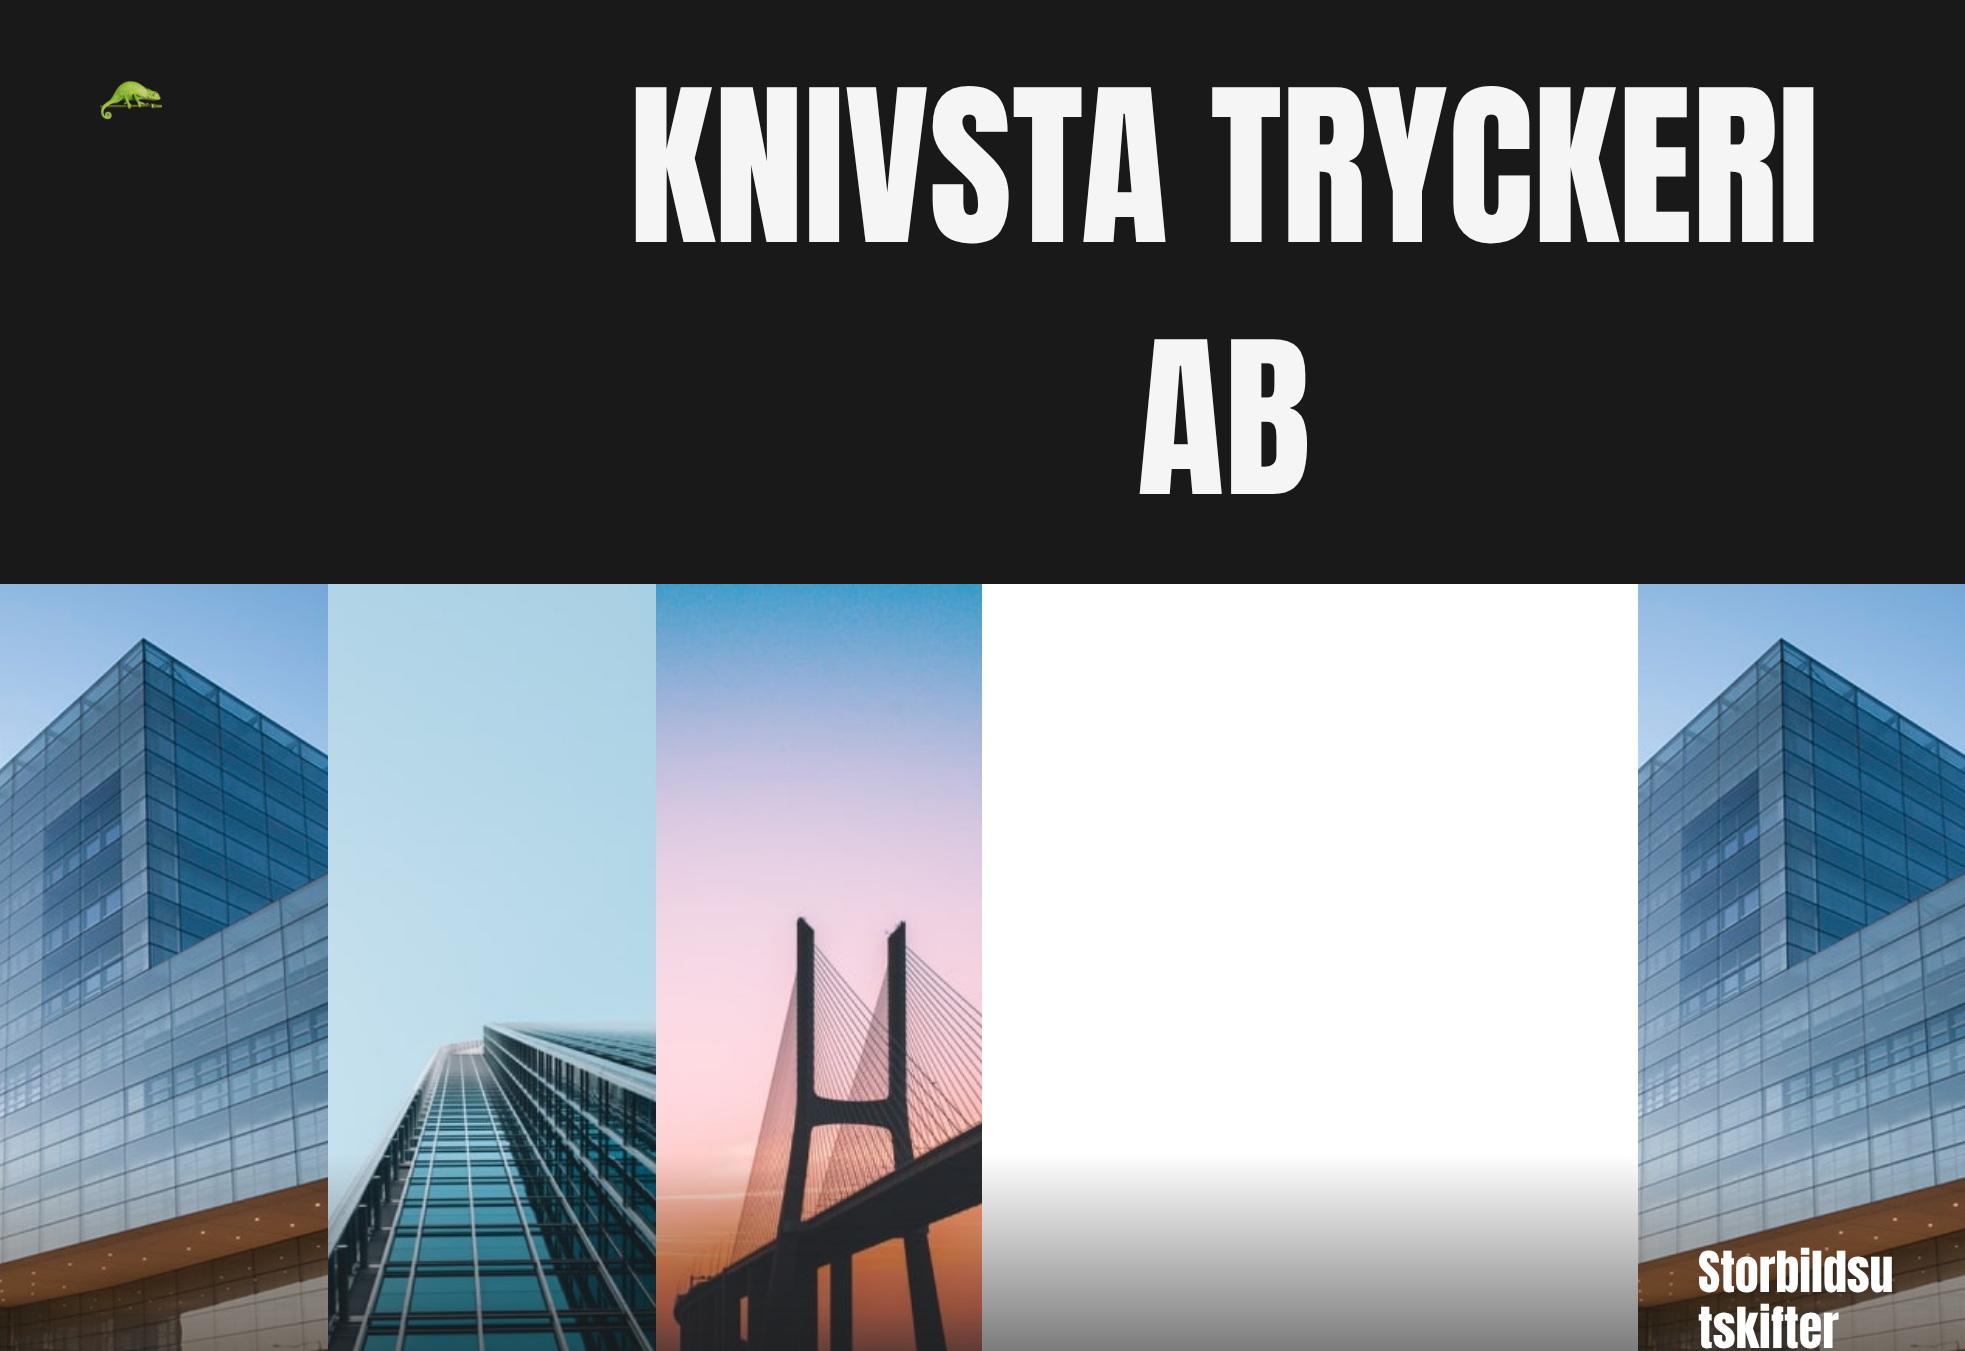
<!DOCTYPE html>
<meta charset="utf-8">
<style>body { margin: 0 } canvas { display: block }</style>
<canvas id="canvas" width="1965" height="1351"></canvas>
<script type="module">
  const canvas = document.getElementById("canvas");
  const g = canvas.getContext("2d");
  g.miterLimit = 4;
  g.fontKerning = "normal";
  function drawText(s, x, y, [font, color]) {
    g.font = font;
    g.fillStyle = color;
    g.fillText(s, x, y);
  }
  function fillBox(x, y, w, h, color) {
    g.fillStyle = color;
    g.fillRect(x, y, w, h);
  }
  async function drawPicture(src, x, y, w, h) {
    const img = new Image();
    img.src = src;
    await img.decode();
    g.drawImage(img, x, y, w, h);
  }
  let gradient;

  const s1 = ["180px Anton", "#F5F5F5"];
  const s2 = ["48px Anton", "#FFFFFF"];

  fillBox(0, 0, 1965, 1351, "#191919");
  await drawPicture("pic1.png", 100, 80, 62, 40);
  drawText("KNIVSTA TRYCKERI", 629, 242, s1);
  drawText("AB", 1137, 494, s1);
  await drawPicture("pic2.png", 0, 584, 328, 767);
  await drawPicture("pic3.png", 328, 584, 328, 767);
  await drawPicture("pic4.png", 656, 584, 326, 767);
  gradient = g.createLinearGradient(1146, 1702, 1146, 584);
  gradient.addColorStop(0.29, "#6A6A6A");
  gradient.addColorStop(0.49, "#FFFFFF");
  g.fillStyle = gradient;
  g.fillRect(982, 584, 328, 767);
  gradient = g.createLinearGradient(1474, 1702, 1474, 584);
  gradient.addColorStop(0.29, "#6A6A6A");
  gradient.addColorStop(0.49, "#FFFFFF");
  g.fillStyle = gradient;
  g.fillRect(1310, 584, 328, 767);
  await drawPicture("pic5.png", 1638, 584, 327, 767);
  drawText("Storbildsu", 1698, 1292, s2);
  drawText("tskifter", 1698, 1348, s2);
</script>
